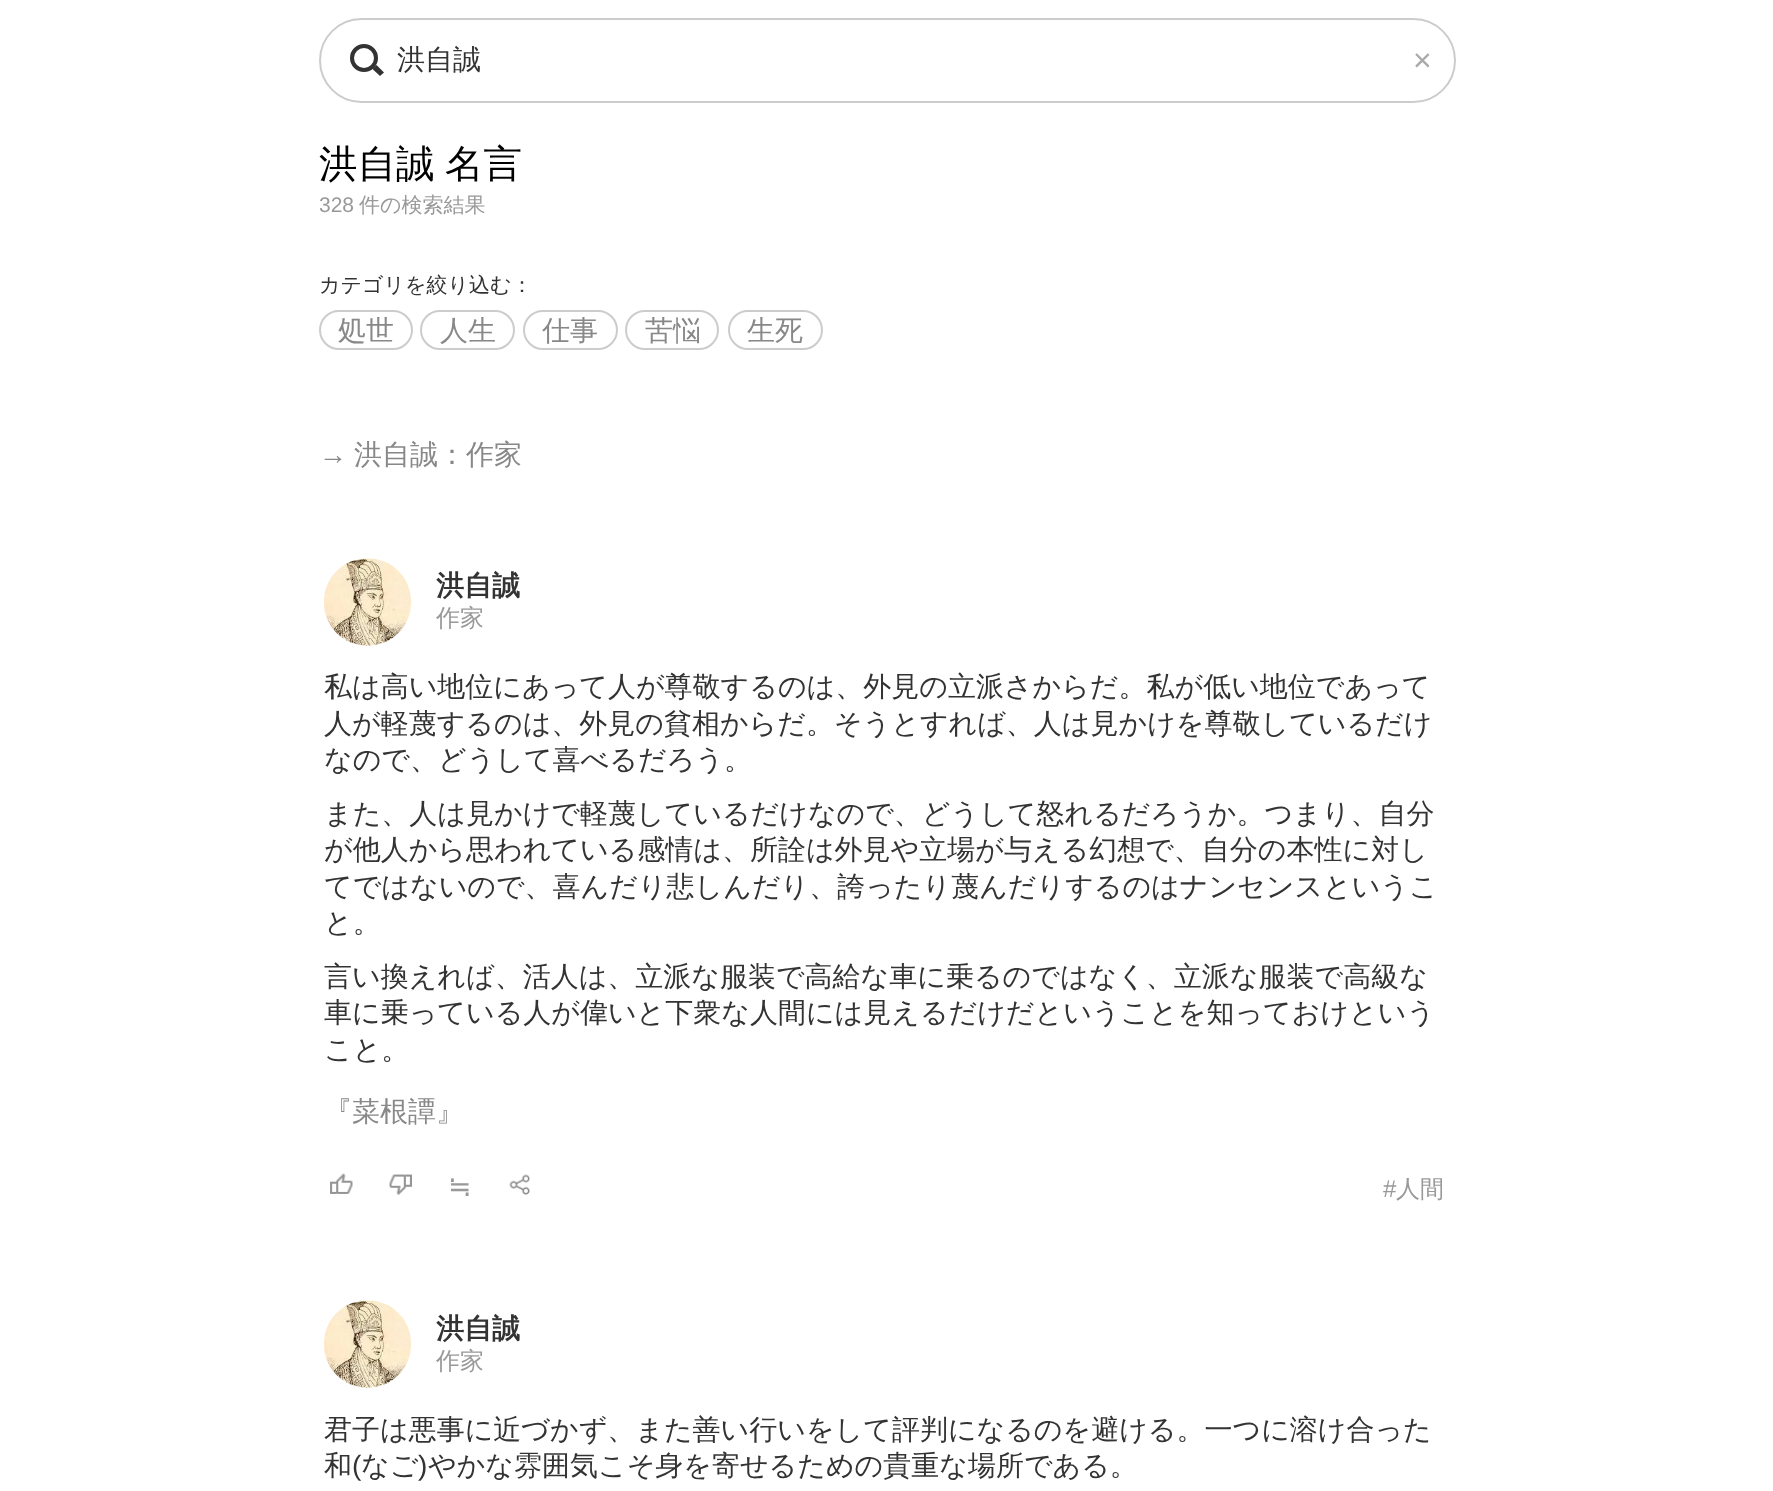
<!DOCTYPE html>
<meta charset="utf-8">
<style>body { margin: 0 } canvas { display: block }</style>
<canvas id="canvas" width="1773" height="1491"></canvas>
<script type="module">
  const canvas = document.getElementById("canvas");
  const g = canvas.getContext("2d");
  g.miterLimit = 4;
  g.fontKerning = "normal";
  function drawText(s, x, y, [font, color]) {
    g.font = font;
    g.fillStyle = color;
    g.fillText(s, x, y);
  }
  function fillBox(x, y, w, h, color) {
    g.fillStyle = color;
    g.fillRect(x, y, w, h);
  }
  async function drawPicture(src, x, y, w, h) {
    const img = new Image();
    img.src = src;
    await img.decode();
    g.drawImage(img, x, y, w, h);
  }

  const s1 = ["500 28px WenQuanYi Zen Hei", "#333333"];
  const s2 = ["32px Liberation Sans", "#AAAAAA"];
  const s3 = ["500 38.5px WenQuanYi Zen Hei", "#000000"];
  const s4 = ["21px Liberation Sans", "#999999"];
  const s5 = ["500 21px WenQuanYi Zen Hei", "#999999"];
  const s6 = ["500 21px WenQuanYi Zen Hei", "#333333"];
  const s7 = ["500 28px WenQuanYi Zen Hei", "#888888"];
  const s8 = ["28px Liberation Sans", "#888888"];
  const s9 = ["bold 28px WenQuanYi Zen Hei", "#333333"];
  const s10 = ["500 24px WenQuanYi Zen Hei", "#999999"];
  const s11 = ["28px DejaVu Sans", "#999999"];
  const s12 = ["24px Liberation Sans", "#999999"];
  const s13 = ["28px Liberation Sans", "#333333"];

  fillBox(0, 0, 1773, 1491, "#FFFFFF");
  g.beginPath();
  g.roundRect(320, 19, 1135, 83, 41.5);
  g.strokeStyle = "#CCCCCC";
  g.lineWidth = 2;
  g.stroke();
  g.beginPath();
  g.arc(364, 58, 12, 0, Math.PI * 2);
  g.strokeStyle = "#333333";
  g.lineWidth = 4;
  g.stroke();
  g.fillStyle = "#333333";
  g.beginPath();
  g.moveTo(376.5, 65);
  g.lineTo(384, 72.5);
  g.lineTo(380, 76);
  g.lineTo(372.5, 69);
  g.closePath();
  g.fill();
  drawText("洪自誠", 397, 69, s1);
  drawText("×", 1413, 71, s2);
  g.wordSpacing = "-1px";
  drawText("洪自誠 名言", 319, 177, s3);
  g.wordSpacing = "0px";
  drawText("328", 319, 212, s4);
  drawText("件の検索結果", 359, 212, s5);
  drawText("カテゴリを絞り込む：", 319, 292, s6);
  g.beginPath();
  g.roundRect(320, 311, 92, 38, 19);
  g.strokeStyle = "#CCCCCC";
  g.lineWidth = 2;
  g.stroke();
  drawText("処世", 338, 340, s7);
  g.beginPath();
  g.roundRect(421, 311, 93, 38, 19);
  g.stroke();
  drawText("人生", 440, 340, s7);
  g.beginPath();
  g.roundRect(524, 311, 93, 38, 19);
  g.stroke();
  drawText("仕事", 542, 340, s7);
  g.beginPath();
  g.roundRect(626, 311, 92, 38, 19);
  g.stroke();
  drawText("苦悩", 645, 340, s7);
  g.beginPath();
  g.roundRect(729, 311, 93, 38, 19);
  g.stroke();
  drawText("生死", 747, 340, s7);
  drawText("→", 319, 464, s8);
  drawText("洪自誠：作家", 354, 464, s7);
  await drawPicture("pic1.png", 324, 558, 87, 88);
  drawText("洪自誠", 436, 595, s9);
  drawText("作家", 436, 626, s10);
  drawText("私は高い地位にあって人が尊敬するのは、外見の立派さからだ。私が低い地位であって", 324, 696, s1);
  drawText("人が軽蔑するのは、外見の貧相からだ。そうとすれば、人は見かけを尊敬しているだけ", 324, 733, s1);
  drawText("なので、どうして喜べるだろう。", 324, 769, s1);
  drawText("また、人は見かけで軽蔑しているだけなので、どうして怒れるだろうか。つまり、自分", 324, 823, s1);
  drawText("が他人から思われている感情は、所詮は外見や立場が与える幻想で、自分の本性に対し", 324, 859, s1);
  drawText("てではないので、喜んだり悲しんだり、誇ったり蔑んだりするのはナンセンスというこ", 324, 896, s1);
  drawText("と。", 324, 932, s1);
  drawText("言い換えれば、活人は、立派な服装で高給な車に乗るのではなく、立派な服装で高級な", 324, 986, s1);
  drawText("車に乗っている人が偉いと下衆な人間には見えるだけだということを知っておけという", 324, 1022, s1);
  drawText("こと。", 324, 1059, s1);
  drawText("『菜根譚』", 324, 1121, s7);
  await drawPicture("pic2.png", 330, 1173, 23, 21);
  await drawPicture("pic3.png", 389, 1174, 23, 21);
  drawText("≒", 448, 1196, s11);
  await drawPicture("pic4.png", 509, 1174, 21, 21);
  drawText("#", 1383, 1197, s12);
  drawText("人間", 1396, 1197, s10);
  await drawPicture("pic1.png", 324, 1300, 87, 88);
  drawText("洪自誠", 436, 1338, s9);
  drawText("作家", 436, 1369, s10);
  drawText("君子は悪事に近づかず、また善い行いをして評判になるのを避ける。一つに溶け合った", 324, 1439, s1);
  drawText("和", 324, 1475, s1);
  drawText("(", 352, 1475, s13);
  drawText("なご", 361, 1475, s1);
  drawText(")", 418, 1475, s13);
  drawText("やかな雰囲気こそ身を寄せるための貴重な場所である。", 428, 1475, s1);
</script>
